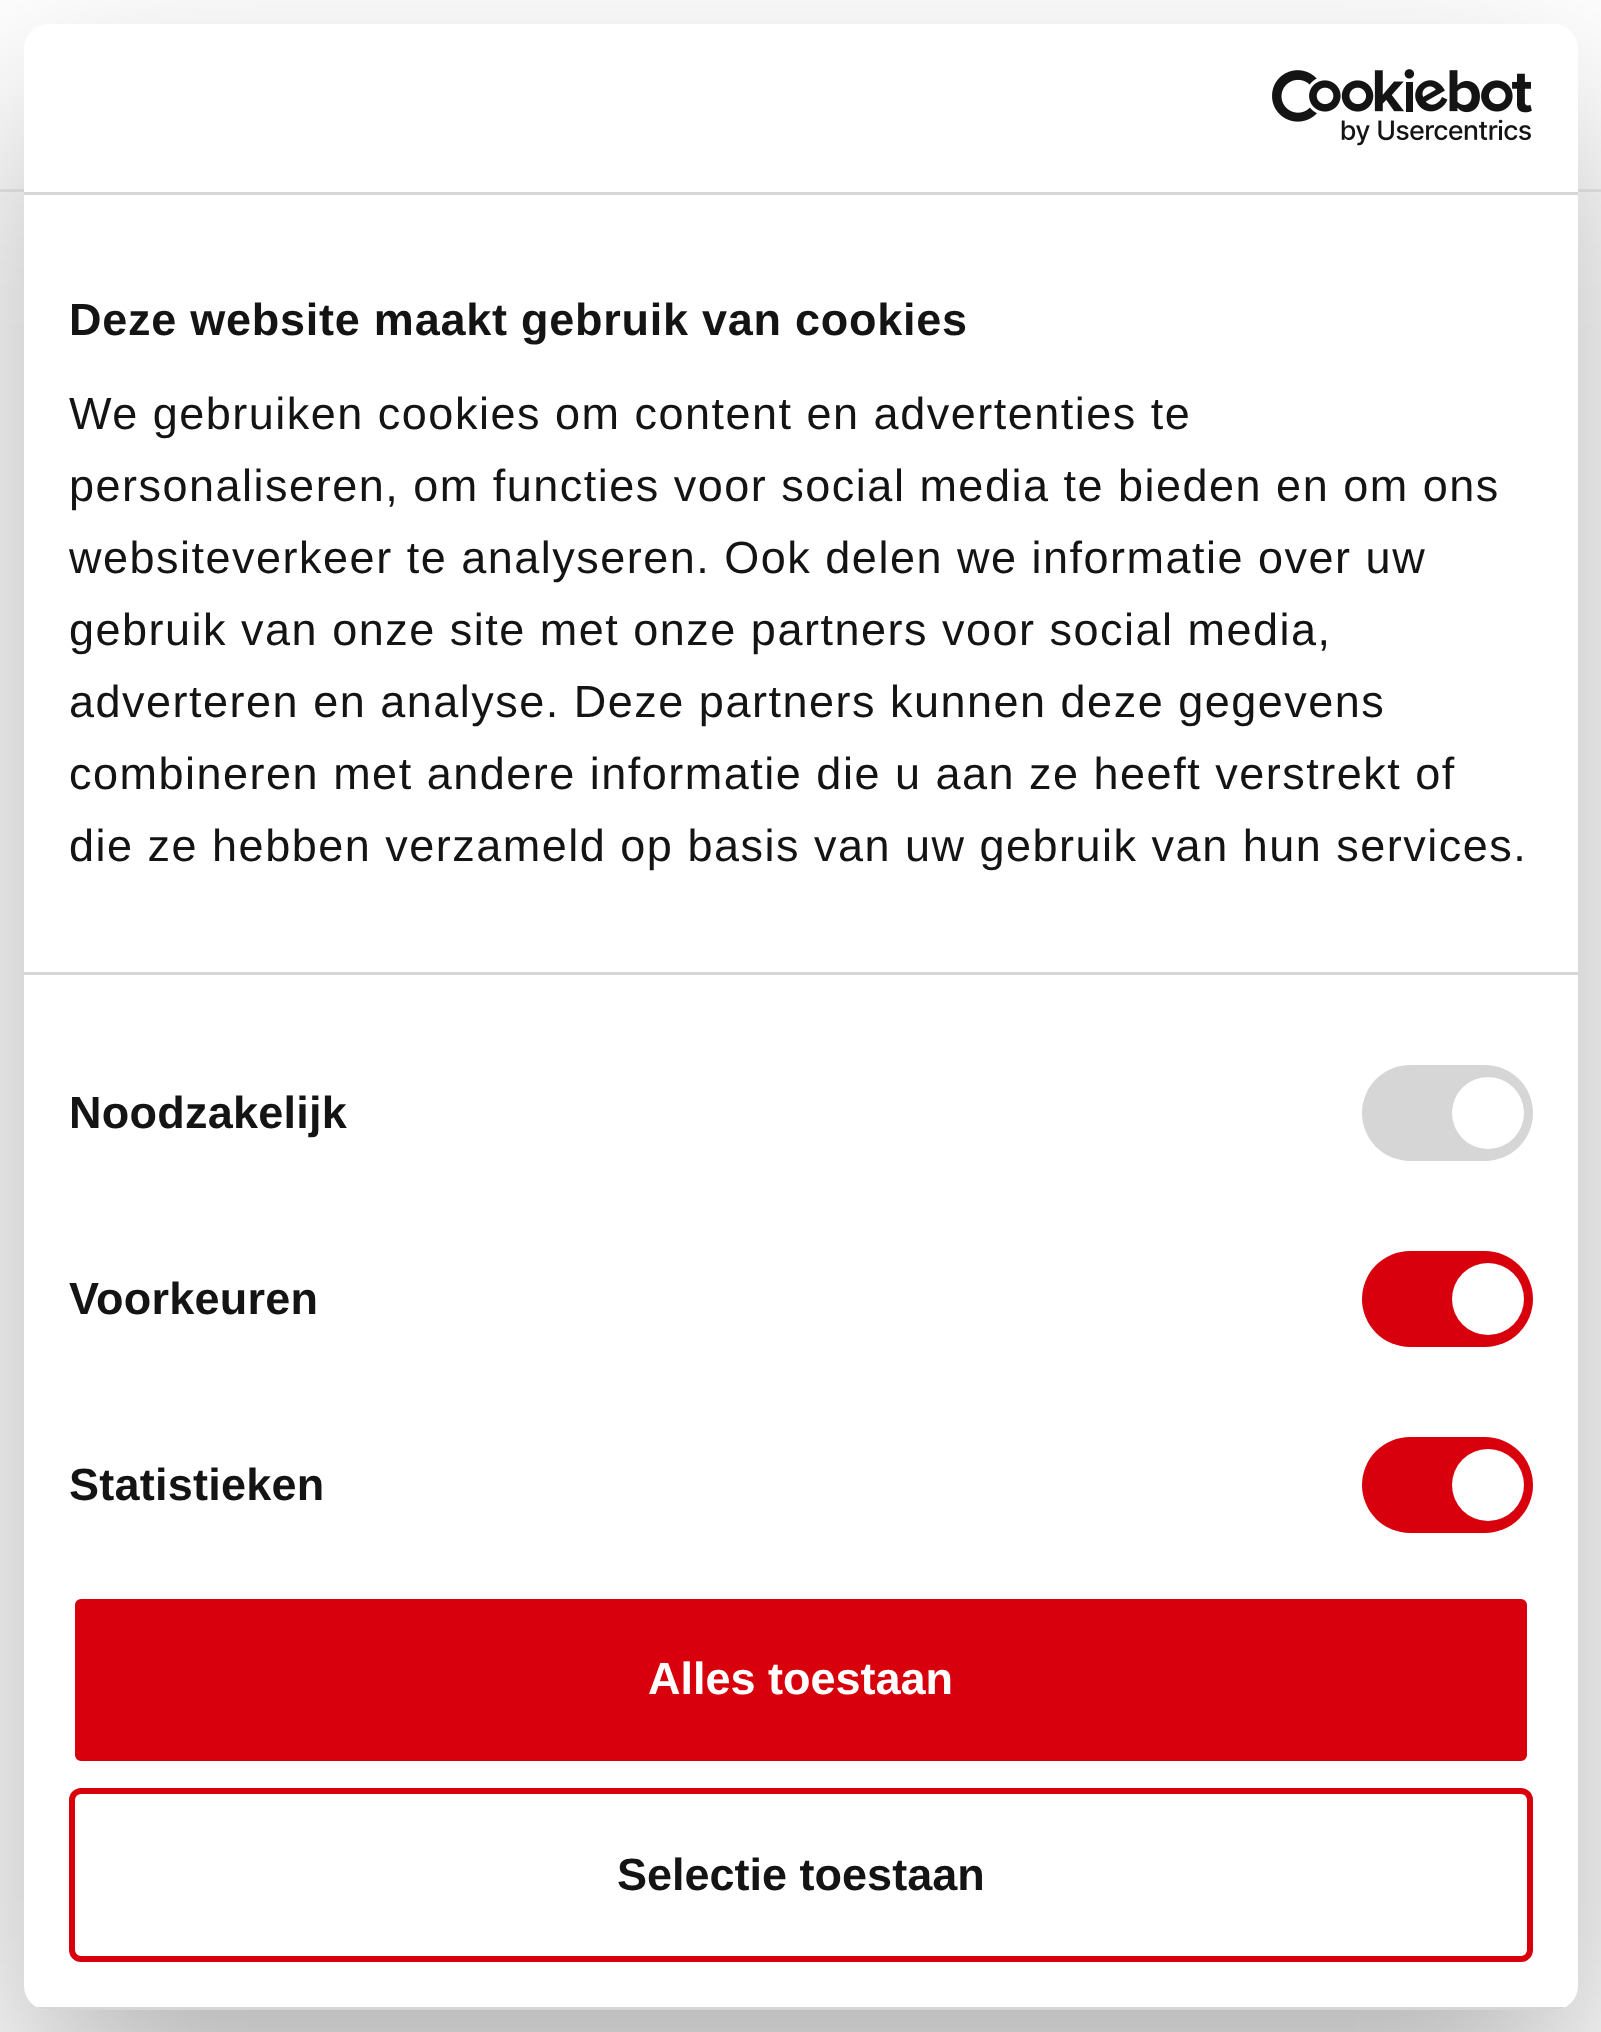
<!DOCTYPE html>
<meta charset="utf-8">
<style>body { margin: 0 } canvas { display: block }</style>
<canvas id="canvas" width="1601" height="2032"></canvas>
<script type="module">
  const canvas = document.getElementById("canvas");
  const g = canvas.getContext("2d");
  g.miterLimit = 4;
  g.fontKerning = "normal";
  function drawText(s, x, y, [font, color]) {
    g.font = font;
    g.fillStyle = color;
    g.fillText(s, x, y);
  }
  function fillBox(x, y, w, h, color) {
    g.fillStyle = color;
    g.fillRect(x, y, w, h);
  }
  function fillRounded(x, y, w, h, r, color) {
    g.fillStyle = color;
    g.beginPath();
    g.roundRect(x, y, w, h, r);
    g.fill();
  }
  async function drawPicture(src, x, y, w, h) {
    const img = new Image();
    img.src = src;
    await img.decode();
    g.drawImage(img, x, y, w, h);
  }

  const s1 = ["bold 45px Liberation Sans", "#141414"];
  const s2 = ["45px Liberation Sans", "#141414"];
  const s3 = ["bold 45px Liberation Sans", "#FFFFFF"];

  fillBox(0, 0, 1601, 2032, "#FFFFFF");
  fillBox(0, 189, 1601, 3, "#EDEDED");
  g.fillStyle = "rgba(0, 0, 0, 0.3)";
  g.filter = "blur(102px)";
  g.beginPath();
  g.roundRect(24, 120, 1554, 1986, 24);
  g.fill();
  g.filter = "none";
  fillRounded(24, 24, 1554, 1986, 24, "#FFFFFF");
  fillBox(24, 192, 1554, 3, "#D6D6D6");
  await drawPicture("pic1.png", 1272, 69, 260, 77);
  fillBox(24, 972, 1554, 3, "#D6D6D6");
  g.letterSpacing = "0.75px";
  drawText("Deze website maakt gebruik van cookies", 69, 335, s1);
  g.letterSpacing = "1.5px";
  drawText("We gebruiken cookies om content en advertenties te", 69, 429, s2);
  drawText("personaliseren, om functies voor social media te bieden en om ons", 69, 501, s2);
  drawText("websiteverkeer te analyseren. Ook delen we informatie over uw", 69, 573, s2);
  drawText("gebruik van onze site met onze partners voor social media,", 69, 645, s2);
  drawText("adverteren en analyse. Deze partners kunnen deze gegevens", 69, 717, s2);
  drawText("combineren met andere informatie die u aan ze heeft verstrekt of", 69, 789, s2);
  drawText("die ze hebben verzameld op basis van uw gebruik van hun services.", 69, 861, s2);
  g.letterSpacing = "0.25px";
  drawText("Noodzakelijk", 69, 1128, s1);
  fillRounded(1362, 1065, 171, 96, 48, "#D6D6D6");
  g.fillStyle = "#FFFFFF";
  g.beginPath();
  g.arc(1488, 1113, 36, 0, Math.PI * 2);
  g.fill();
  drawText("Voorkeuren", 69, 1314, s1);
  fillRounded(1362, 1251, 171, 96, 48, "#D9000D");
  g.fillStyle = "#FFFFFF";
  g.beginPath();
  g.arc(1488, 1299, 36, 0, Math.PI * 2);
  g.fill();
  drawText("Statistieken", 69, 1500, s1);
  fillRounded(1362, 1437, 171, 96, 48, "#D9000D");
  g.fillStyle = "#FFFFFF";
  g.beginPath();
  g.arc(1488, 1485, 36, 0, Math.PI * 2);
  g.fill();
  g.save();
  g.beginPath();
  g.roundRect(24, 24, 1554, 1986, 24);
  g.clip();
  fillBox(36, 2007, 1530, 3, "#D6D6D6");
  g.restore();
  g.fillStyle = "#D9000D";
  g.beginPath();
  g.roundRect(72, 1596, 1458, 168, 9);
  g.fill();
  g.strokeStyle = "#FFFFFF";
  g.lineWidth = 6;
  g.stroke();
  g.letterSpacing = "0px";
  drawText("Alles toestaan", 648, 1694, s3);
  g.beginPath();
  g.roundRect(72, 1791, 1458, 168, 9);
  g.strokeStyle = "#D9000D";
  g.stroke();
  drawText("Selectie toestaan", 617, 1890, s1);
</script>
